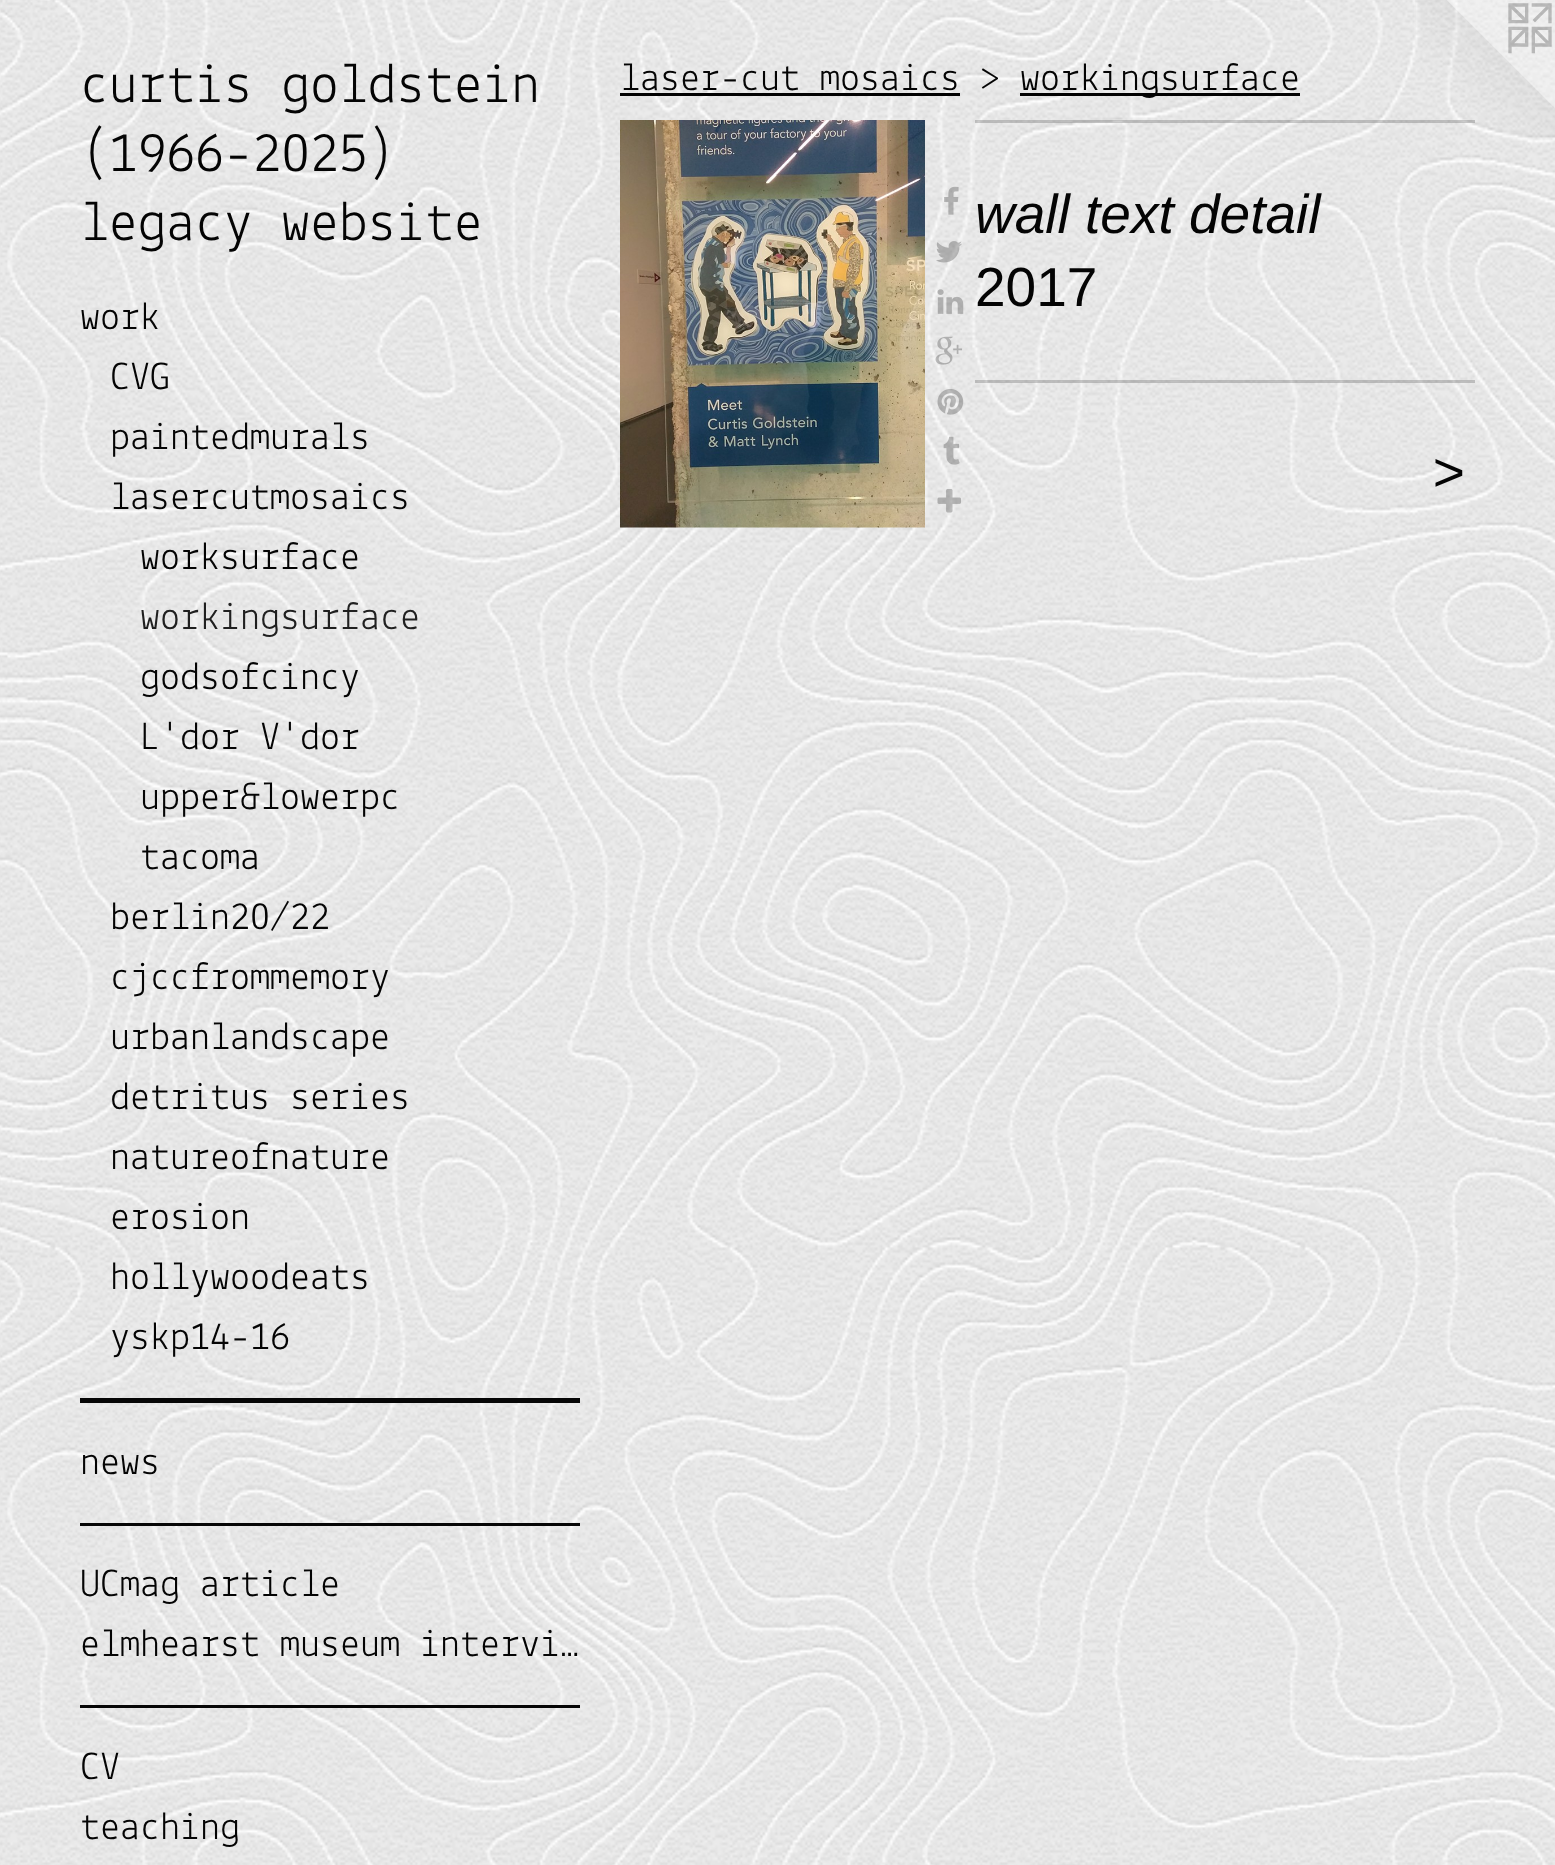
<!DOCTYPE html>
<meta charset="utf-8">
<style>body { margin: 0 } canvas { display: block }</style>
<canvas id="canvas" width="1555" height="1865"></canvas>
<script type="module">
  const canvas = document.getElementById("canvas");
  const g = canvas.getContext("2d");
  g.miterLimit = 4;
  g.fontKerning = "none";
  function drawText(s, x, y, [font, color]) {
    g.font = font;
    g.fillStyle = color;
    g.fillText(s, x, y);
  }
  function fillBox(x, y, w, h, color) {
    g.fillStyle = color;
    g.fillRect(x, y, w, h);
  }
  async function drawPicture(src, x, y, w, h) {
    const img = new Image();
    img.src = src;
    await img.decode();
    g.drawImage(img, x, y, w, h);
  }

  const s1 = ["57.5px Lekton", "#040404"];
  const s2 = ["40px Lekton", "#040404"];
  const s3 = ["40px Lekton", "#202020"];
  const s4 = ["italic 55px Liberation Sans", "#040404"];
  const s5 = ["55px Liberation Sans", "#040404"];

  fillBox(0, 0, 1555, 1865, "#FFFFFF");
  await drawPicture("pic1.png", 0, 0, 1555, 1865);
  drawText("curtis goldstein", 80, 102, s1);
  drawText("(1966-2025)", 80, 171, s1);
  drawText("legacy website", 80, 240, s1);
  drawText("work", 80, 329, s2);
  drawText("CVG", 110, 389, s2);
  drawText("paintedmurals", 110, 449, s2);
  drawText("lasercutmosaics", 110, 509, s2);
  drawText("worksurface", 140, 569, s2);
  drawText("workingsurface", 140, 629, s3);
  drawText("godsofcincy", 140, 689, s2);
  drawText("L'dor V'dor", 140, 749, s2);
  drawText("upper&lowerpc", 140, 809, s2);
  drawText("tacoma", 140, 869, s2);
  drawText("berlin20/22", 110, 929, s2);
  drawText("cjccfrommemory", 110, 989, s2);
  drawText("urbanlandscape", 110, 1049, s2);
  drawText("detritus series", 110, 1109, s2);
  drawText("natureofnature", 110, 1169, s2);
  drawText("erosion", 110, 1229, s2);
  drawText("hollywoodeats", 110, 1289, s2);
  drawText("yskp14-16", 110, 1349, s2);
  fillBox(80, 1398, 500, 5, "#060606");
  drawText("news", 80, 1474, s2);
  fillBox(80, 1523, 500, 3, "#060606");
  drawText("UCmag article", 80, 1596, s2);
  drawText("elmhearst museum intervi…", 80, 1656, s2);
  fillBox(80, 1705, 500, 3, "#060606");
  drawText("CV", 80, 1779, s2);
  drawText("teaching", 80, 1839, s2);
  drawText("laser-cut mosaics >", 620, 90, s2);
  fillBox(620, 93, 340, 3, "#020202");
  fillBox(1020, 93, 280, 3, "#020202");
  drawText("workingsurface", 1020, 90, s2);
  await drawPicture("pic2.png", 620, 120, 305, 408);
  await drawPicture("pic3.png", 944, 186, 15, 29);
  await drawPicture("pic4.png", 936, 241, 26, 22);
  await drawPicture("pic5.png", 937, 289, 27, 25);
  await drawPicture("pic6.png", 935, 336, 27, 29);
  await drawPicture("pic7.png", 937, 389, 27, 26);
  await drawPicture("pic8.png", 943, 436, 17, 29);
  await drawPicture("pic9.png", 937, 489, 24, 24);
  await drawPicture("pic10.png", 1415, 0, 140, 140);
  fillBox(975, 120, 500, 3, "rgba(8, 8, 8, 0.2)");
  drawText("wall text detail", 975, 233, s4);
  drawText("2017", 975, 306, s5);
  fillBox(975, 380, 500, 3, "rgba(8, 8, 8, 0.2)");
  g.letterSpacing = "2px";
  drawText(">", 1432, 491, s4);
</script>
